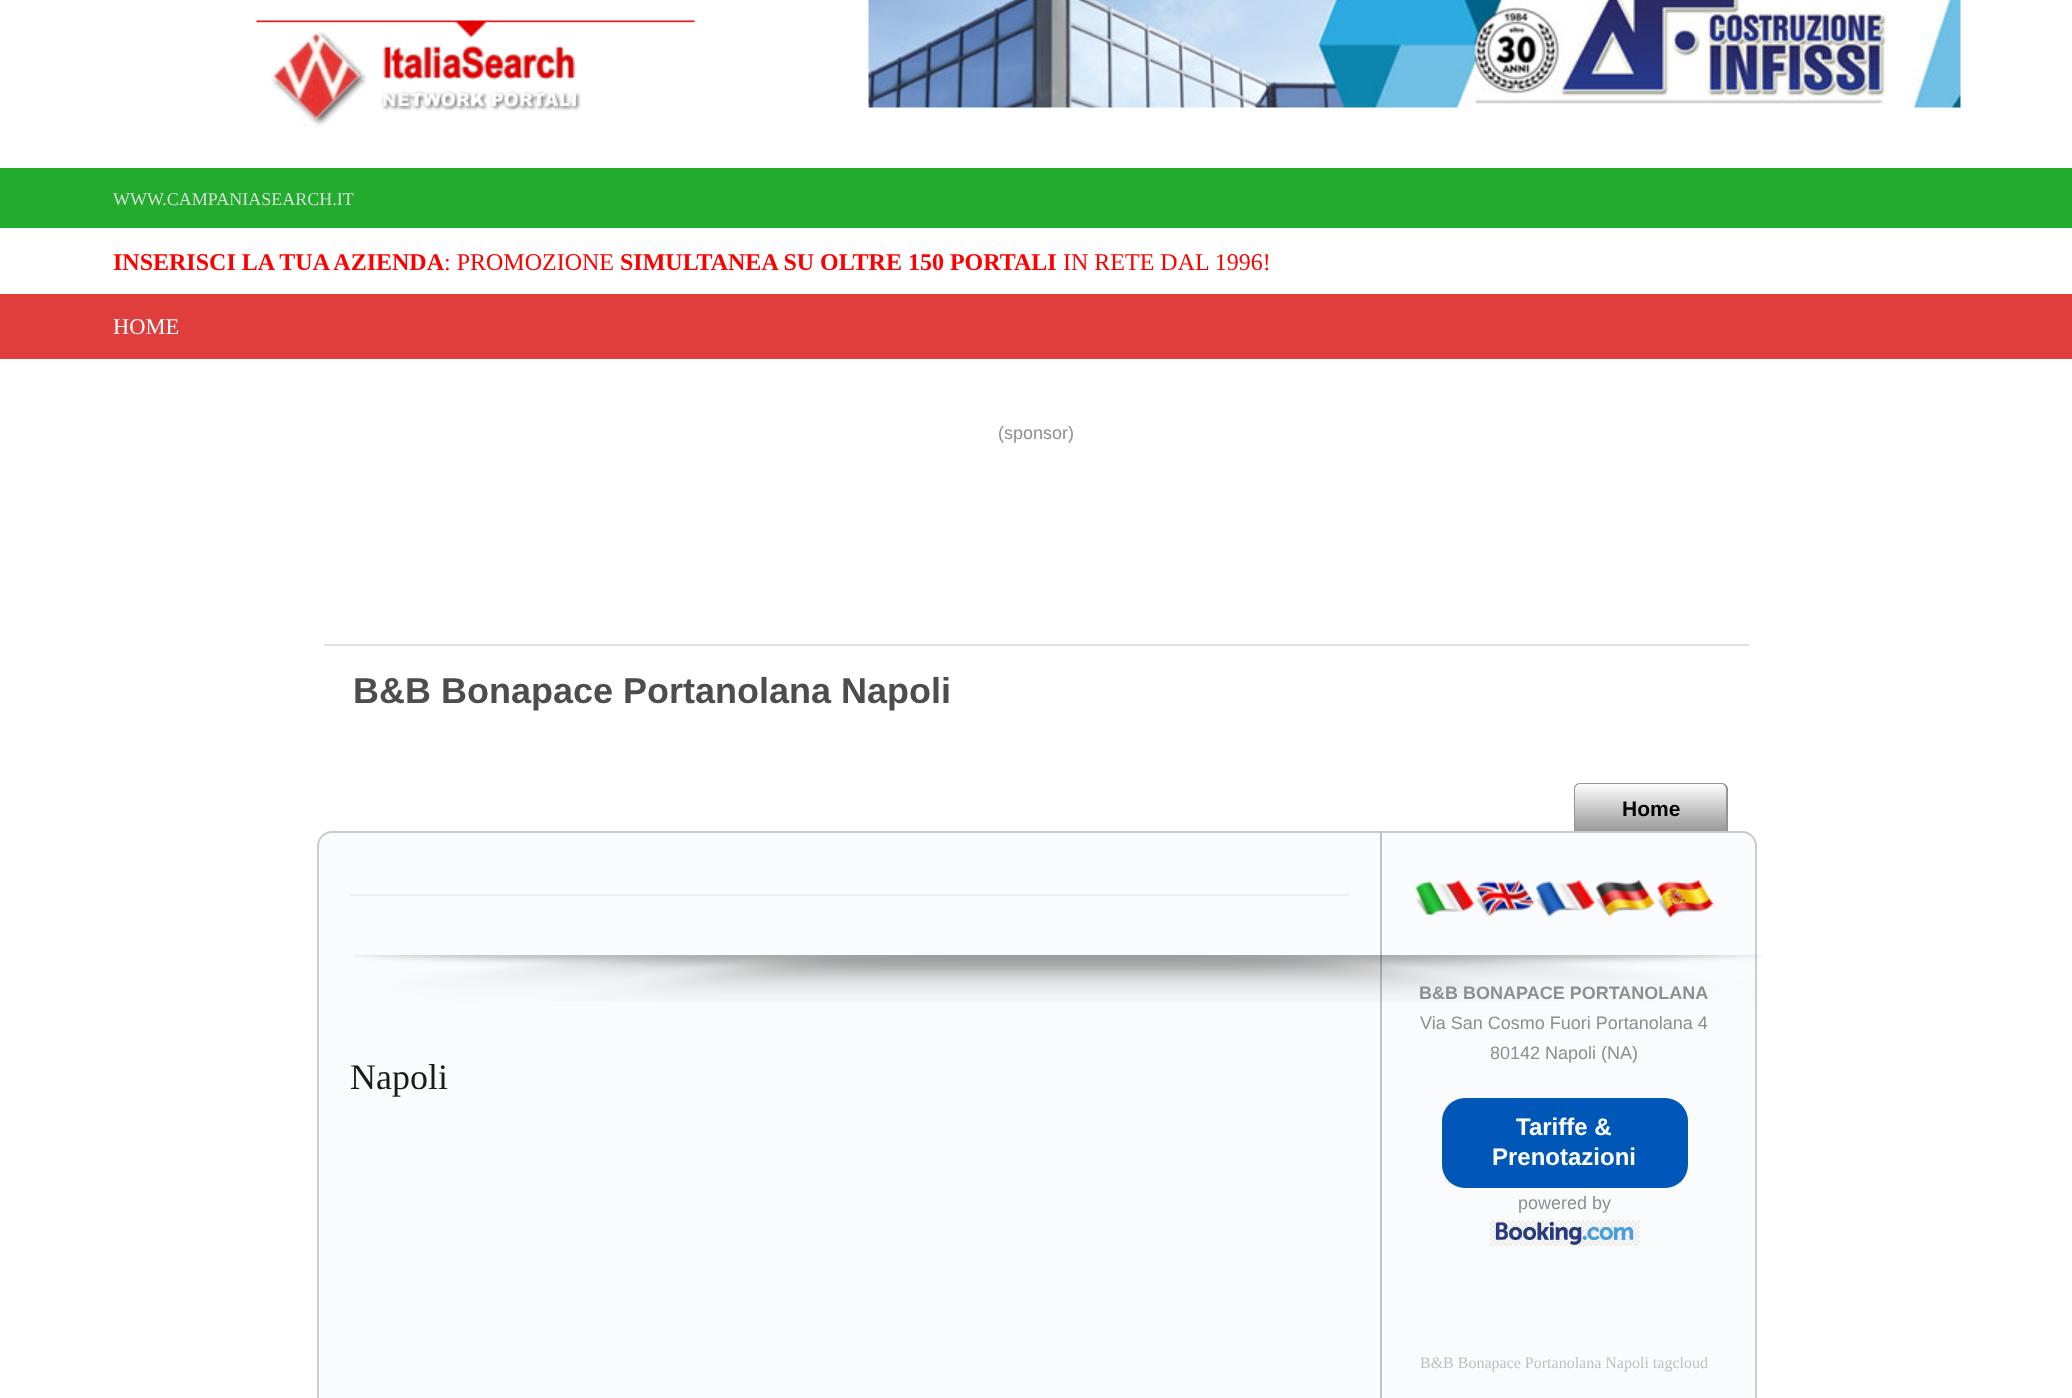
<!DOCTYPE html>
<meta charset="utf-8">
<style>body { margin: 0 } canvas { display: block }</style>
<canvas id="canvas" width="2072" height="1398"></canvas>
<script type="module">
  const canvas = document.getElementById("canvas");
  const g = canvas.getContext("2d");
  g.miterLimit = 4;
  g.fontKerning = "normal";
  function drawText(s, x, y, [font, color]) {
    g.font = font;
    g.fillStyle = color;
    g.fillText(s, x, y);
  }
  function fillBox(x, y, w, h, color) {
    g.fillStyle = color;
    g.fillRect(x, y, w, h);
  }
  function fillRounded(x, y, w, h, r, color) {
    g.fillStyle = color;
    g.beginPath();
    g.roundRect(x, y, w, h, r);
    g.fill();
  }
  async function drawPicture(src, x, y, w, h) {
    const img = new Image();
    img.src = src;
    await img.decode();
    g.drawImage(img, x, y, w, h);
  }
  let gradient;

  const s1 = ["18px Liberation Serif", "#DADADA"];
  const s2 = ["bold 24px Liberation Serif", "#FF0000"];
  const s3 = ["24px Liberation Serif", "#FF0000"];
  const s4 = ["22.5px Liberation Serif", "#FFFFFF"];
  const s5 = ["18px Liberation Sans", "#8F8F8F"];
  const s6 = ["bold 36px Liberation Sans", "#4D4D4D"];
  const s7 = ["bold 21px Liberation Sans", "#000000"];
  const s8 = ["36px Liberation Serif", "#1B1B1B"];
  const s9 = ["bold 18px Liberation Sans", "#8F8F8F"];
  const s10 = ["bold 24px Liberation Sans", "#FFFFFF"];
  const s11 = ["16px Liberation Serif", "#C0C0C0"];

  fillBox(0, 0, 2072, 1398, "#FFFFFF");
  await drawPicture("pic1.png", 256, 20, 439, 106);
  await drawPicture("pic2.png", 868, 0, 1093, 108);
  fillBox(0, 168, 2072, 60, "#21AC2D");
  drawText("WWW.CAMPANIASEARCH.IT", 113, 205, s1);
  drawText("INSERISCI LA TUA AZIENDA", 113, 270, s2);
  drawText(": PROMOZIONE", 444, 270, s3);
  drawText("SIMULTANEA SU OLTRE 150 PORTALI", 620, 270, s2);
  drawText("IN RETE DAL 1996!", 1063, 270, s3);
  fillBox(0, 294, 2072, 65, "#E03D3D");
  drawText("HOME", 113, 334, s4);
  drawText("(sponsor)", 998, 439, s5);
  fillBox(324, 644, 1425, 2, "#E0E0E0");
  drawText("B&B Bonapace Portanolana Napoli", 353, 703, s6);
  gradient = g.createLinearGradient(1651, 783, 1651, 831);
  gradient.addColorStop(0, "#FFFFFF");
  gradient.addColorStop(1, "#999999");
  g.fillStyle = gradient;
  g.beginPath();
  g.roundRect(1574, 783, 154, 48, [6, 6, 0, 0]);
  g.fill();
  g.fillStyle = "#949494";
  g.beginPath();
  g.moveTo(1580, 783);
  g.lineTo(1722, 783);
  g.bezierCurveTo(1725, 783, 1728, 786, 1728, 789);
  g.lineTo(1728, 831);
  g.lineTo(1574, 831);
  g.lineTo(1574, 789);
  g.bezierCurveTo(1574, 786, 1576, 783, 1580, 783);
  g.closePath();
  g.moveTo(1580, 784);
  g.lineTo(1722, 784);
  g.bezierCurveTo(1724, 784, 1726, 787, 1726, 789);
  g.lineTo(1726, 831);
  g.lineTo(1575, 831);
  g.lineTo(1575, 789);
  g.bezierCurveTo(1575, 787, 1577, 784, 1580, 784);
  g.closePath();
  g.fill("evenodd");
  drawText("Home", 1622, 816, s7);
  g.fillStyle = "#FAFBFC";
  g.beginPath();
  g.roundRect(318, 832, 1438, 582, 14);
  g.fill();
  g.strokeStyle = "#CBCBCB";
  g.lineWidth = 2;
  g.stroke();
  fillBox(350, 894, 999, 2, "#EEEEEE");
  fillBox(1380, 831, 2, 567, "#BBC5C9");
  await drawPicture("pic3.png", 353, 955, 1410, 47);
  drawText("Napoli", 350, 1089, s8);
  await drawPicture("pic4.png", 1415, 880, 60, 35);
  await drawPicture("pic5.png", 1475, 880, 60, 37);
  await drawPicture("pic6.png", 1535, 880, 60, 37);
  await drawPicture("pic7.png", 1595, 880, 60, 37);
  await drawPicture("pic8.png", 1657, 880, 57, 38);
  drawText("B&B BONAPACE PORTANOLANA", 1419, 999, s9);
  drawText("Via San Cosmo Fuori Portanolana 4", 1420, 1029, s5);
  drawText("80142 Napoli (NA)", 1490, 1059, s5);
  fillRounded(1442, 1098, 246, 90, 23, "#0057B8");
  drawText("Tariffe &", 1516, 1135, s10);
  drawText("Prenotazioni", 1492, 1165, s10);
  drawText("powered by", 1518, 1209, s5);
  await drawPicture("pic9.png", 1489, 1220, 151, 26);
  drawText("B&B Bonapace Portanolana Napoli tagcloud", 1420, 1368, s11);
</script>
